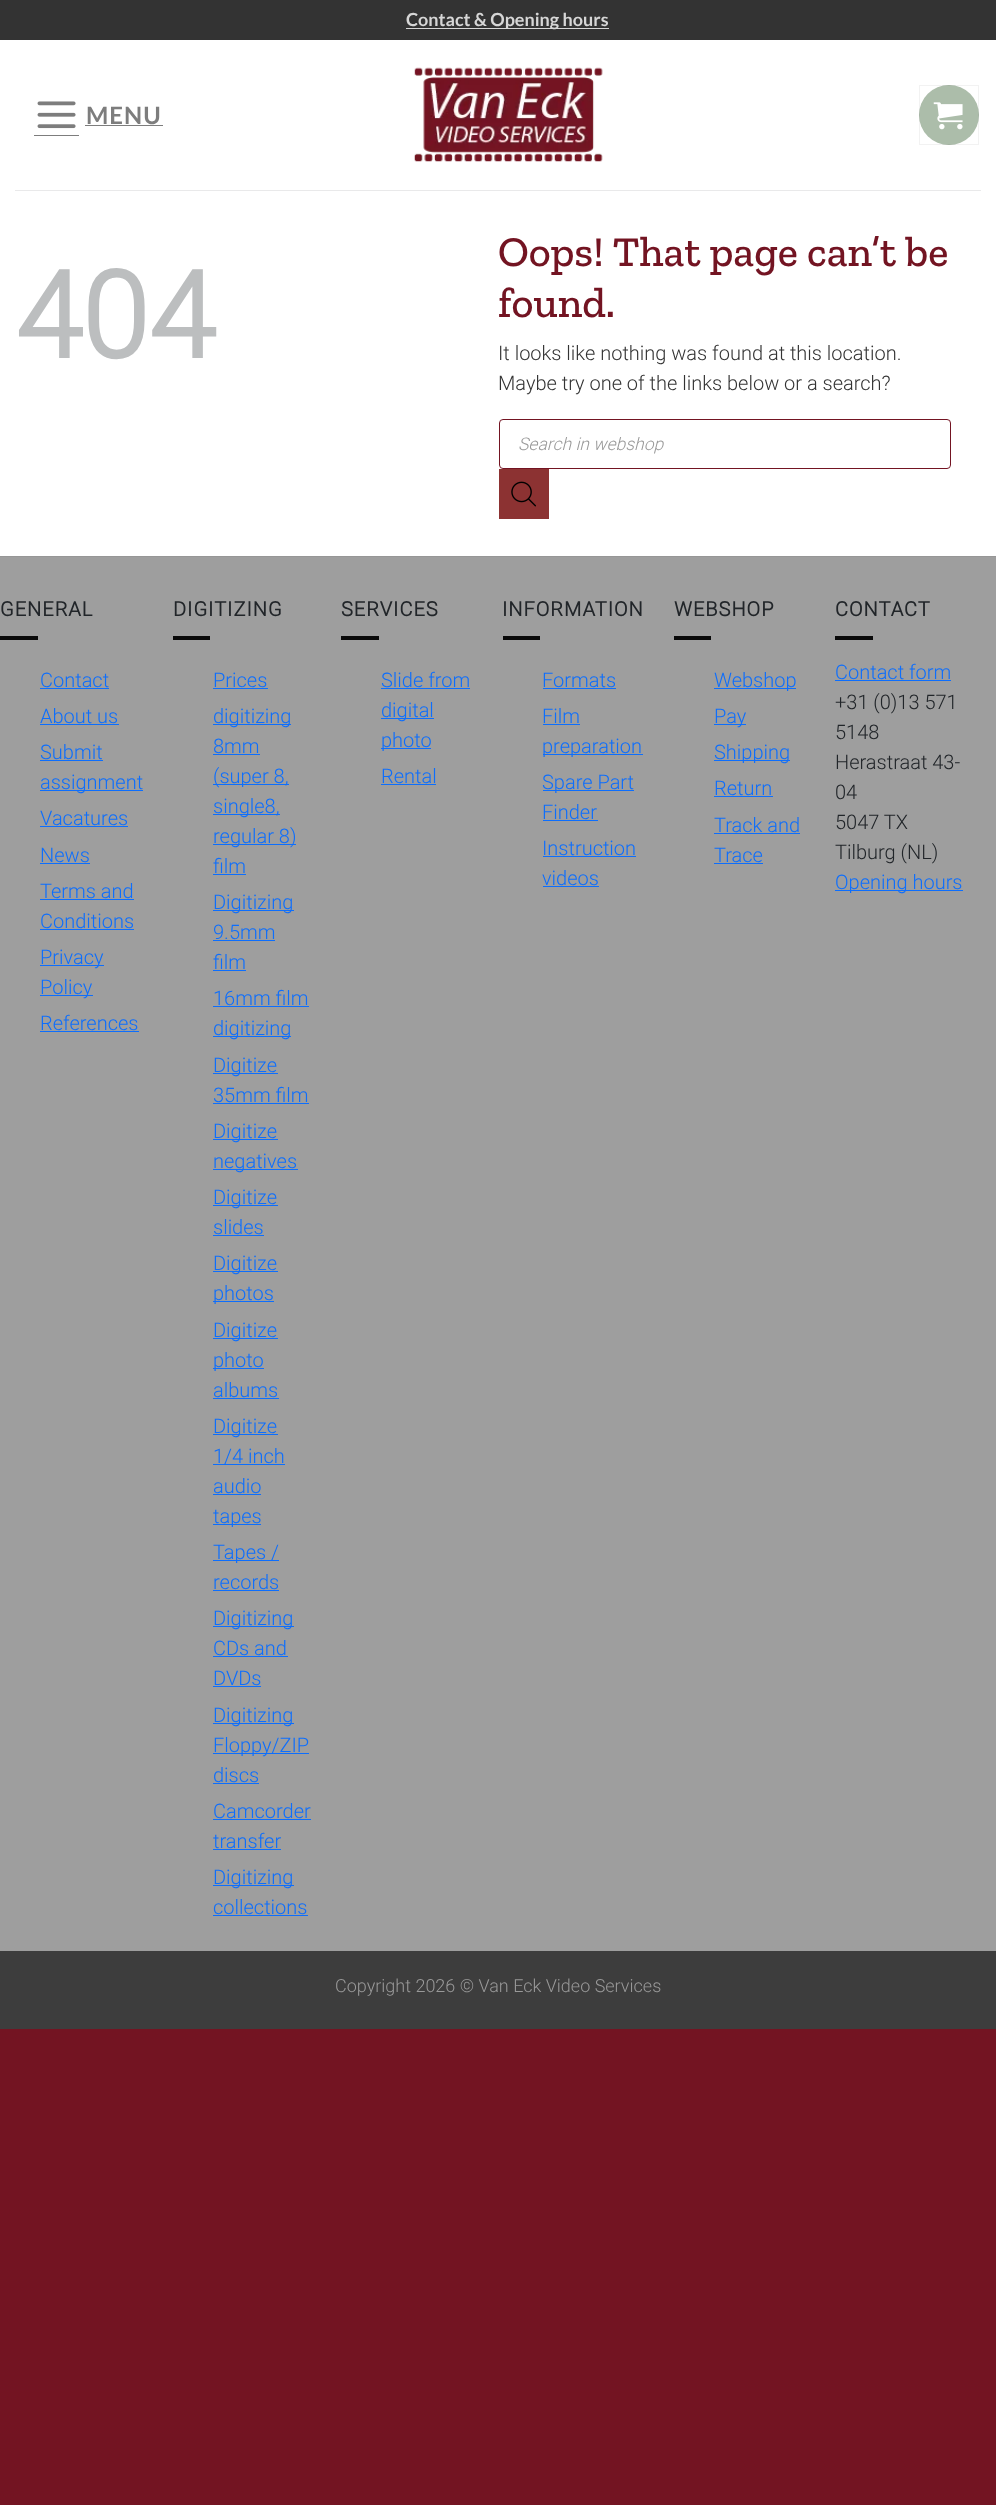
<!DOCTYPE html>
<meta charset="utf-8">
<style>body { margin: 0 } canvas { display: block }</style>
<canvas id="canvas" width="996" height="2505"></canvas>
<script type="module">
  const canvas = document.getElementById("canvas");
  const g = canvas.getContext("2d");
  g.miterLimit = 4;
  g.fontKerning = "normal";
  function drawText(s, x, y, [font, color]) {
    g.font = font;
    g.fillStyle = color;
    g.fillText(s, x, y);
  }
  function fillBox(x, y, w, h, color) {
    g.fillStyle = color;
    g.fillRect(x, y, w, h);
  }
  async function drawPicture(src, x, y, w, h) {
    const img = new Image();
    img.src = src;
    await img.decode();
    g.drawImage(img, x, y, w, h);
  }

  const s1 = ["bold 18px Lato", "#D6D6D6"];
  const s2 = ["bold 24px Lato", "#7D7D7D"];
  const s3 = ["bold 120px Roboto", "#BCBEBF"];
  const s4 = ["500 42.5px Zilla Slab", "#731422"];
  const s5 = ["300 20px Roboto", "#333333"];
  const s6 = ["italic 300 17.5px Roboto", "#999999"];
  const s7 = ["bold 20px Roboto", "#212529"];
  const s8 = ["300 20px Roboto", "#0D6EFD"];
  const s9 = ["300 20px Roboto", "#212529"];
  const s10 = ["300 18px Roboto", "#999999"];

  fillBox(0, 0, 996, 2505, "#731422");
  fillBox(0, 40, 996, 516, "#FFFFFF");
  fillBox(0, 0, 996, 40, "#333333");
  fillBox(406, 28, 203, 1, "#D6D6D6");
  drawText("Contact & Opening hours", 406, 26, s1);
  await drawPicture("pic1.png", 37, 101, 39, 28);
  fillBox(34, 135, 45, 1, "#7D7D7D");
  g.letterSpacing = "1px";
  drawText("MENU", 86, 124, s2);
  fillBox(85, 125, 78, 1, "#7D7D7D");
  await drawPicture("pic2.png", 414, 67, 189, 95);
  g.fillStyle = "#ACBDAA";
  g.beginPath();
  g.arc(949, 115, 30, 0, Math.PI * 2);
  g.fill();
  g.strokeStyle = "rgba(0, 0, 0, 0.05)";
  g.strokeRect(919.5, 85.5, 59, 59);
  await drawPicture("pic3.png", 933, 102, 30, 28);
  fillBox(15, 190, 966, 1, "#E9E9EA");
  g.letterSpacing = "0px";
  drawText("404", 15, 358, s3);
  drawText("Oops! That page can’t be", 498, 266, s4);
  drawText("found.", 498, 317, s4);
  drawText("It looks like nothing was found at this location.", 498, 360, s5);
  drawText("Maybe try one of the links below or a search?", 498, 390, s5);
  g.beginPath();
  g.roundRect(499.5, 419.5, 451, 49, 3.5);
  g.strokeStyle = "#731422";
  g.stroke();
  drawText("Search in webshop", 518, 450, s6);
  fillBox(499, 469, 50, 50, "#8C3232");
  await drawPicture("pic4.png", 511, 481, 25, 26);
  fillBox(0, 557, 996, 1394, "#9E9E9E");
  fillBox(0, 556, 996, 1, "#969696");
  g.letterSpacing = "1px";
  drawText("GENERAL", 0, 616, s7);
  fillBox(0, 636, 38, 4, "#0A0A0A");
  g.letterSpacing = "0px";
  drawText("Contact", 40, 687, s8);
  fillBox(40, 688, 69, 1, "#0D6EFD");
  drawText("About us", 40, 723, s8);
  fillBox(40, 724, 79, 1, "#0D6EFD");
  drawText("Submit", 40, 759, s8);
  fillBox(40, 760, 63, 1, "#0D6EFD");
  fillBox(40, 790, 103, 1, "#0D6EFD");
  drawText("assignment", 40, 789, s8);
  drawText("Vacatures", 40, 825, s8);
  fillBox(40, 826, 88, 1, "#0D6EFD");
  drawText("News", 40, 862, s8);
  fillBox(40, 863, 50, 1, "#0D6EFD");
  drawText("Terms and", 40, 898, s8);
  fillBox(40, 899, 94, 1, "#0D6EFD");
  drawText("Conditions", 40, 928, s8);
  fillBox(40, 929, 94, 1, "#0D6EFD");
  fillBox(40, 965, 64, 1, "#0D6EFD");
  drawText("Privacy", 40, 964, s8);
  fillBox(40, 995, 53, 1, "#0D6EFD");
  drawText("Policy", 40, 994, s8);
  drawText("References", 40, 1030, s8);
  fillBox(40, 1031, 99, 1, "#0D6EFD");
  g.letterSpacing = "1px";
  drawText("DIGITIZING", 173, 616, s7);
  fillBox(173, 636, 37, 4, "#0A0A0A");
  g.letterSpacing = "0px";
  drawText("Prices", 213, 687, s8);
  fillBox(213, 688, 55, 1, "#0D6EFD");
  fillBox(213, 724, 78, 1, "#0D6EFD");
  drawText("digitizing", 213, 723, s8);
  drawText("8mm", 213, 753, s8);
  fillBox(213, 754, 47, 1, "#0D6EFD");
  fillBox(213, 784, 76, 1, "#0D6EFD");
  drawText("(super 8,", 213, 783, s8);
  fillBox(213, 814, 67, 1, "#0D6EFD");
  drawText("single8,", 213, 813, s8);
  fillBox(213, 844, 83, 1, "#0D6EFD");
  drawText("regular 8)", 213, 843, s8);
  drawText("film", 213, 873, s8);
  fillBox(213, 874, 33, 1, "#0D6EFD");
  fillBox(213, 910, 81, 1, "#0D6EFD");
  drawText("Digitizing", 213, 909, s8);
  drawText("9.5mm", 213, 939, s8);
  fillBox(213, 940, 62, 1, "#0D6EFD");
  drawText("film", 213, 969, s8);
  fillBox(213, 970, 33, 1, "#0D6EFD");
  drawText("16mm film", 213, 1005, s8);
  fillBox(213, 1006, 96, 1, "#0D6EFD");
  fillBox(213, 1036, 78, 1, "#0D6EFD");
  drawText("digitizing", 213, 1035, s8);
  fillBox(213, 1073, 65, 1, "#0D6EFD");
  drawText("Digitize", 213, 1072, s8);
  drawText("35mm film", 213, 1102, s8);
  fillBox(213, 1103, 96, 1, "#0D6EFD");
  fillBox(213, 1139, 65, 1, "#0D6EFD");
  drawText("Digitize", 213, 1138, s8);
  fillBox(213, 1169, 85, 1, "#0D6EFD");
  drawText("negatives", 213, 1168, s8);
  fillBox(213, 1205, 65, 1, "#0D6EFD");
  drawText("Digitize", 213, 1204, s8);
  drawText("slides", 213, 1234, s8);
  fillBox(213, 1235, 51, 1, "#0D6EFD");
  fillBox(213, 1271, 65, 1, "#0D6EFD");
  drawText("Digitize", 213, 1270, s8);
  fillBox(213, 1301, 61, 1, "#0D6EFD");
  drawText("photos", 213, 1300, s8);
  fillBox(213, 1338, 65, 1, "#0D6EFD");
  drawText("Digitize", 213, 1337, s8);
  fillBox(213, 1368, 51, 1, "#0D6EFD");
  drawText("photo", 213, 1367, s8);
  drawText("albums", 213, 1397, s8);
  fillBox(213, 1398, 66, 1, "#0D6EFD");
  fillBox(213, 1434, 65, 1, "#0D6EFD");
  drawText("Digitize", 213, 1433, s8);
  fillBox(213, 1464, 72, 1, "#0D6EFD");
  drawText("1/4 inch", 213, 1463, s8);
  drawText("audio", 213, 1493, s8);
  fillBox(213, 1494, 48, 1, "#0D6EFD");
  fillBox(213, 1524, 48, 1, "#0D6EFD");
  drawText("tapes", 213, 1523, s8);
  fillBox(213, 1560, 66, 1, "#0D6EFD");
  drawText("Tapes /", 213, 1559, s8);
  drawText("records", 213, 1589, s8);
  fillBox(213, 1590, 66, 1, "#0D6EFD");
  fillBox(213, 1626, 81, 1, "#0D6EFD");
  drawText("Digitizing", 213, 1625, s8);
  drawText("CDs and", 213, 1655, s8);
  fillBox(213, 1656, 75, 1, "#0D6EFD");
  drawText("DVDs", 213, 1685, s8);
  fillBox(213, 1686, 48, 1, "#0D6EFD");
  fillBox(213, 1723, 81, 1, "#0D6EFD");
  drawText("Digitizing", 213, 1722, s8);
  fillBox(213, 1753, 96, 1, "#0D6EFD");
  drawText("Floppy/ZIP", 213, 1752, s8);
  drawText("discs", 213, 1782, s8);
  fillBox(213, 1783, 46, 1, "#0D6EFD");
  drawText("Camcorder", 213, 1818, s8);
  fillBox(213, 1819, 98, 1, "#0D6EFD");
  drawText("transfer", 213, 1848, s8);
  fillBox(213, 1849, 68, 1, "#0D6EFD");
  fillBox(213, 1885, 81, 1, "#0D6EFD");
  drawText("Digitizing", 213, 1884, s8);
  drawText("collections", 213, 1914, s8);
  fillBox(213, 1915, 95, 1, "#0D6EFD");
  g.letterSpacing = "1px";
  drawText("SERVICES", 341, 616, s7);
  fillBox(341, 636, 38, 4, "#0A0A0A");
  g.letterSpacing = "0px";
  drawText("Slide from", 381, 687, s8);
  fillBox(381, 688, 89, 1, "#0D6EFD");
  fillBox(381, 718, 53, 1, "#0D6EFD");
  drawText("digital", 381, 717, s8);
  fillBox(381, 748, 50, 1, "#0D6EFD");
  drawText("photo", 381, 747, s8);
  drawText("Rental", 381, 783, s8);
  fillBox(381, 784, 55, 1, "#0D6EFD");
  g.letterSpacing = "1px";
  drawText("INFORMATION", 502, 616, s7);
  fillBox(503, 636, 37, 4, "#0A0A0A");
  g.letterSpacing = "0px";
  drawText("Formats", 542, 687, s8);
  fillBox(543, 688, 73, 1, "#0D6EFD");
  drawText("Film", 542, 723, s8);
  fillBox(543, 724, 37, 1, "#0D6EFD");
  fillBox(543, 754, 100, 1, "#0D6EFD");
  drawText("preparation", 542, 753, s8);
  fillBox(543, 790, 91, 1, "#0D6EFD");
  drawText("Spare Part", 542, 789, s8);
  drawText("Finder", 542, 819, s8);
  fillBox(543, 820, 55, 1, "#0D6EFD");
  drawText("Instruction", 542, 855, s8);
  fillBox(543, 856, 93, 1, "#0D6EFD");
  drawText("videos", 542, 885, s8);
  fillBox(543, 886, 56, 1, "#0D6EFD");
  g.letterSpacing = "1px";
  drawText("WEBSHOP", 674, 616, s7);
  fillBox(674, 636, 37, 4, "#0A0A0A");
  fillBox(714, 688, 82, 1, "#0D6EFD");
  g.letterSpacing = "0px";
  drawText("Webshop", 714, 687, s8);
  fillBox(714, 724, 32, 1, "#0D6EFD");
  drawText("Pay", 714, 723, s8);
  fillBox(714, 760, 76, 1, "#0D6EFD");
  drawText("Shipping", 714, 759, s8);
  drawText("Return", 714, 795, s8);
  fillBox(714, 796, 59, 1, "#0D6EFD");
  drawText("Track and", 714, 832, s8);
  fillBox(714, 833, 86, 1, "#0D6EFD");
  drawText("Trace", 714, 862, s8);
  fillBox(714, 863, 49, 1, "#0D6EFD");
  g.letterSpacing = "1px";
  drawText("CONTACT", 835, 616, s7);
  fillBox(835, 636, 38, 4, "#0A0A0A");
  g.letterSpacing = "0px";
  drawText("Contact form", 835, 679, s8);
  fillBox(835, 680, 116, 1, "#0D6EFD");
  drawText("+31 (0)13 571", 835, 709, s9);
  drawText("5148", 835, 739, s9);
  drawText("Herastraat 43-", 835, 769, s9);
  drawText("04", 835, 799, s9);
  drawText("5047 TX", 835, 829, s9);
  drawText("Tilburg (NL)", 835, 859, s9);
  fillBox(835, 890, 128, 1, "#0D6EFD");
  drawText("Opening hours", 835, 889, s8);
  fillBox(0, 1951, 996, 78, "#3D3D3D");
  drawText("Copyright 2026 © Van Eck Video Services", 335, 1992, s10);
</script>
